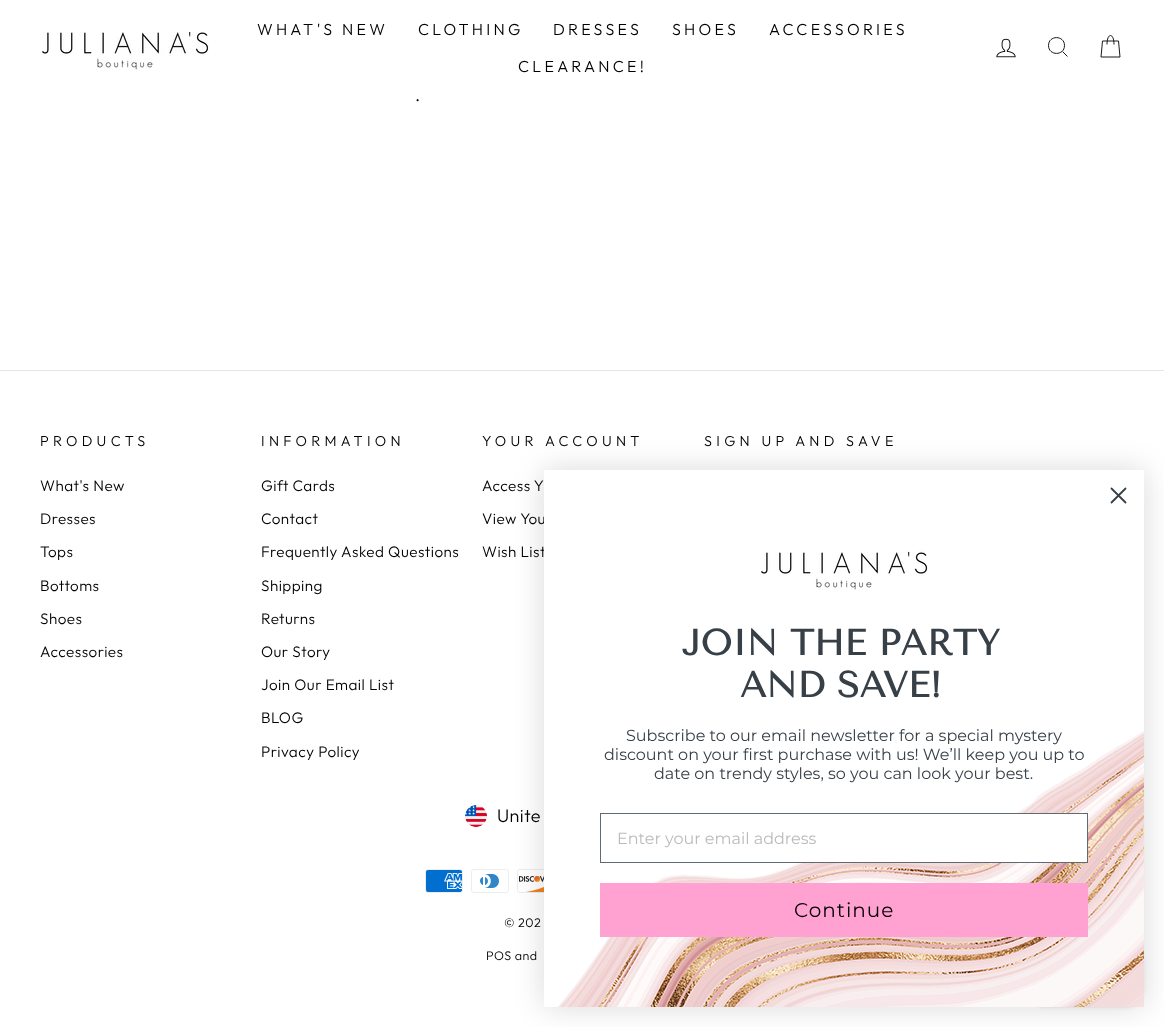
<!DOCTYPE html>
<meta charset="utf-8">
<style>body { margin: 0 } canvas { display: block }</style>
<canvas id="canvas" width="1164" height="1027"></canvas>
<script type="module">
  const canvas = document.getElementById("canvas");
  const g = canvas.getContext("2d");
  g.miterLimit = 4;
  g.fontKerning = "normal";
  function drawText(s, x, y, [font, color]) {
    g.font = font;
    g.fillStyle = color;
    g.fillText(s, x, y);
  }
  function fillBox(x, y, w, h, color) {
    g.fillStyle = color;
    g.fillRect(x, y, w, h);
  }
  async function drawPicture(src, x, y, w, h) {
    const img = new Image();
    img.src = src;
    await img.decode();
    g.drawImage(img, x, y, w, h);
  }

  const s1 = ["300 16px Outfit", "#000000"];
  const s2 = ["300 18px Outfit", "#000000"];
  const s3 = ["300 14.4px Outfit", "#000000"];
  const s4 = ["300 15.25px Outfit", "#000000"];
  const s5 = ["300 12.5px Outfit", "#000000"];
  const s6 = ["bold 36px Tenor Sans", "#373F47"];
  const s7 = ["100 16px Montserrat", "#373F47"];
  const s8 = ["100 16px Montserrat", "#BBBBBB"];
  const s9 = ["100 20px Montserrat", "#000000"];

  fillBox(0, 0, 1164, 1027, "#FFFFFF");
  g.fillStyle = "rgba(0, 0, 0, 0.2)";
  g.filter = "blur(0.5px)";
  g.beginPath();
  g.rect(0, 0, 1164, 95);
  g.fill();
  g.filter = "none";
  fillBox(0, 0, 1164, 95, "#FFFFFF");
  await drawPicture("pic1.png", 41, 32, 168, 40);
  g.letterSpacing = "3.25px";
  drawText("WHAT'S NEW", 257, 35, s1);
  drawText("CLOTHING", 418, 35, s1);
  drawText("DRESSES", 553, 35, s1);
  drawText("SHOES", 672, 35, s1);
  drawText("ACCESSORIES", 769, 35, s1);
  drawText("CLEARANCE!", 518, 72, s1);
  await drawPicture("pic2.png", 996, 38, 20, 20);
  g.beginPath();
  g.moveTo(1064.5, 45.5);
  g.bezierCurveTo(1064.5, 56, 1048.5, 56, 1048.5, 45.5);
  g.bezierCurveTo(1048.5, 35, 1064.5, 35, 1064.5, 45.5);
  g.closePath();
  g.moveTo(1067.5, 56.5);
  g.lineTo(1062.5, 51.5);
  g.strokeStyle = "#000000";
  g.lineWidth = 0.9;
  g.stroke();
  g.beginPath();
  g.moveTo(1107, 44.5);
  g.bezierCurveTo(1107, 32.5, 1114, 32.5, 1114, 44.5);
  g.moveTo(1102.5, 41);
  g.lineTo(1118.5, 41);
  g.lineTo(1120, 57);
  g.lineTo(1101, 57);
  g.closePath();
  g.stroke();
  g.letterSpacing = "0.45px";
  drawText(".", 415, 101, s2);
  fillBox(0, 370, 1164, 1, "#E8E8E1");
  g.letterSpacing = "4.3px";
  drawText("PRODUCTS", 40, 446, s3);
  g.letterSpacing = "0.45px";
  drawText("What's New", 40, 491, s4);
  drawText("Dresses", 40, 524, s4);
  drawText("Tops", 40, 557, s4);
  drawText("Bottoms", 40, 591, s4);
  drawText("Shoes", 40, 624, s4);
  drawText("Accessories", 40, 657, s4);
  g.letterSpacing = "4.3px";
  drawText("INFORMATION", 261, 446, s3);
  g.letterSpacing = "0.45px";
  drawText("Gift Cards", 261, 491, s4);
  drawText("Contact", 261, 524, s4);
  drawText("Frequently Asked Questions", 261, 557, s4);
  drawText("Shipping", 261, 591, s4);
  drawText("Returns", 261, 624, s4);
  drawText("Our Story", 261, 657, s4);
  drawText("Join Our Email List", 261, 690, s4);
  drawText("BLOG", 261, 723, s4);
  drawText("Privacy Policy", 261, 757, s4);
  g.letterSpacing = "4.3px";
  drawText("YOUR ACCOUNT", 482, 446, s3);
  g.letterSpacing = "0.45px";
  drawText("Access Y", 482, 491, s4);
  drawText("View You", 482, 524, s4);
  drawText("Wish List", 482, 557, s4);
  g.letterSpacing = "4.3px";
  drawText("SIGN UP AND SAVE", 704, 446, s3);
  await drawPicture("pic3.png", 465, 805, 22, 22);
  g.letterSpacing = "0.45px";
  drawText("Unite", 497, 822, s2);
  await drawPicture("pic4.png", 425, 869, 38, 24);
  await drawPicture("pic5.png", 471, 869, 38, 24);
  await drawPicture("pic6.png", 517, 869, 27, 24);
  drawText("© 202", 504, 927, s5);
  drawText("POS and", 486, 960, s5);
  g.fillStyle = "rgba(0, 0, 0, 0.15)";
  g.filter = "blur(15px)";
  g.beginPath();
  g.rect(544, 470, 600, 537);
  g.fill();
  g.filter = "none";
  g.filter = "blur(2.5px)";
  g.beginPath();
  g.roundRect(1029, 946, 113, 60, 16);
  g.fill();
  g.filter = "none";
  fillBox(544, 470, 600, 537, "#FFFFFF");
  g.beginPath();
  g.moveTo(1111.5, 488.5);
  g.lineTo(1125.5, 502.5);
  g.moveTo(1111.5, 502.5);
  g.lineTo(1125.5, 488.5);
  g.closePath();
  g.strokeStyle = "#373F47";
  g.lineWidth = 1.8;
  g.lineCap = "round";
  g.lineJoin = "round";
  g.stroke();
  await drawPicture("pic7.png", 558, 731, 586, 276);
  await drawPicture("pic8.png", 761, 550, 167, 40);
  g.letterSpacing = "0px";
  drawText("JOIN THE PARTY", 682, 655, s6);
  drawText("AND SAVE!", 740, 697, s6);
  drawText("Subscribe to our email newsletter for a special mystery", 626, 741, s7);
  drawText("discount on your first purchase with us! We’ll keep you up to", 604, 760, s7);
  drawText("date on trendy styles, so you can look your best.", 654, 779, s7);
  fillBox(802, 814, 285, 48, "#FFFFFF");
  g.strokeStyle = "#606A72";
  g.lineWidth = 1;
  g.lineJoin = "miter";
  g.strokeRect(600.5, 813.5, 487, 49);
  drawText("Enter your email address", 617, 844, s8);
  fillBox(600, 883, 488, 54, "#FFA2D1");
  g.letterSpacing = "1px";
  drawText("Continue", 794, 917, s9);
</script>
